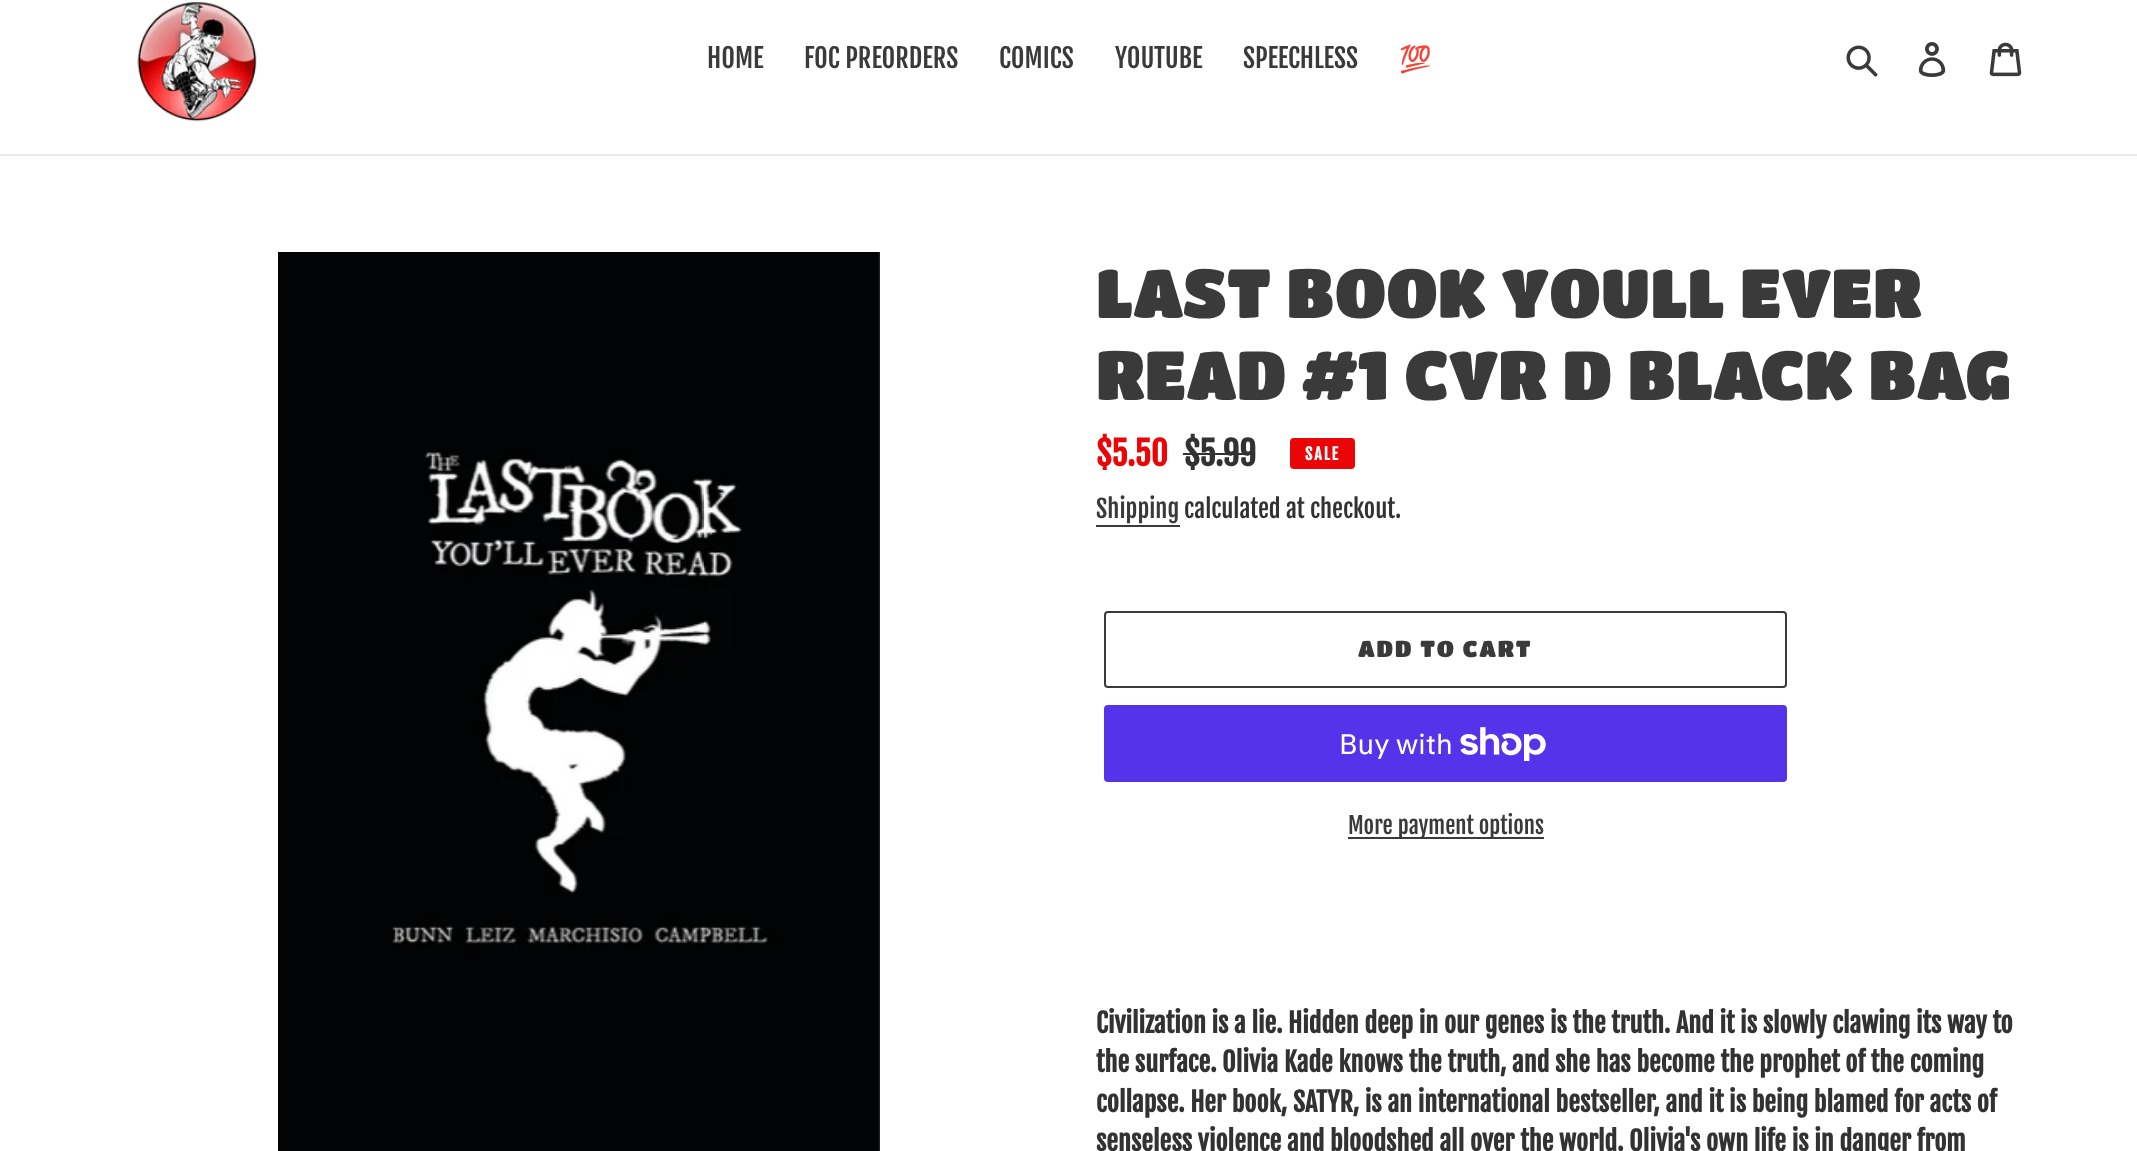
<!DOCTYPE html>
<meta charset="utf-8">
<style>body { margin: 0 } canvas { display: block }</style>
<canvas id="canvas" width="2137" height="1151"></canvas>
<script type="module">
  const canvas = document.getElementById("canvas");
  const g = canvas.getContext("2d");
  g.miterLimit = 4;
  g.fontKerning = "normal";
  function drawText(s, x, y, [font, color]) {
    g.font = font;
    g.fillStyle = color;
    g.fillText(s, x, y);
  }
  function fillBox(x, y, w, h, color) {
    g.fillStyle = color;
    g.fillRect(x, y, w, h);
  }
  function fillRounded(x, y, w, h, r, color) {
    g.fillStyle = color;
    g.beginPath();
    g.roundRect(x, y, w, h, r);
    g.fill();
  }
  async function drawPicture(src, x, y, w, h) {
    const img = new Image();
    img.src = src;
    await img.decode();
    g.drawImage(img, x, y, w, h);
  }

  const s1 = ["26.25px Fjalla One", "#3A3A3A"];
  const s2 = ["26.25px Noto Color Emoji", "#3A3A3A"];
  const s3 = ["68.25px Titan One", "#3A3A3A"];
  const s4 = ["bold 33px Fjalla One", "#EA0606"];
  const s5 = ["bold 33px Fjalla One", "#333232"];
  const s6 = ["bold 16px Fjalla One", "#FFFFFF"];
  const s7 = ["24.5px Fjalla One", "#3A3A3A"];
  const s8 = ["24.5px Fjalla One", "#333232"];
  const s9 = ["22.75px Titan One", "#3A3A3A"];
  const s10 = ["28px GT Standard", "#FFFFFF"];
  const s11 = ["22.75px Fjalla One", "#3A3A3A"];
  const s12 = ["bold 26.25px Fjalla One", "#333232"];

  fillBox(0, 0, 2137, 1151, "#FFFFFF");
  fillBox(0, 154, 2137, 2, "#EBEBEB");
  await drawPicture("pic1.png", 137, 1, 120, 121);
  drawText("HOME", 707, 68, s1);
  drawText("FOC PREORDERS", 804, 68, s1);
  drawText("COMICS", 999, 68, s1);
  drawText("YOUTUBE", 1115, 68, s1);
  drawText("SPEECHLESS", 1243, 68, s1);
  drawText("💯", 1399, 68, s2);
  await drawPicture("pic2.png", 1846, 45, 32, 32);
  await drawPicture("pic3.png", 1918, 42, 28, 35);
  await drawPicture("pic4.png", 1989, 42, 33, 35);
  await drawPicture("pic5.png", 278, 252, 602, 899);
  drawText("LAST BOOK YOULL EVER", 1096, 318, s3);
  drawText("READ #1 CVR D BLACK BAG", 1096, 400, s3);
  drawText("$5.50", 1096, 466, s4);
  drawText("$5.99", 1184, 466, s5);
  fillBox(1183, 453, 72, 2, "#333232");
  g.fillStyle = "#EA0606";
  g.beginPath();
  g.roundRect(1291, 439, 63, 29, 3);
  g.fill();
  g.strokeStyle = "#EA0606";
  g.lineWidth = 2;
  g.stroke();
  g.letterSpacing = "2px";
  drawText("SALE", 1305, 460, s6);
  g.letterSpacing = "0px";
  drawText("Shipping", 1096, 518, s7);
  fillBox(1096, 525, 84, 2, "#3A3A3A");
  drawText("calculated at checkout.", 1184, 518, s8);
  g.beginPath();
  g.roundRect(1105, 612, 681, 75, 3);
  g.strokeStyle = "#3A3A3A";
  g.stroke();
  g.letterSpacing = "1.75px";
  drawText("ADD TO CART", 1358, 657, s9);
  fillRounded(1104, 705, 683, 77, 4, "#5433EB");
  g.letterSpacing = "0px";
  drawText("Buy with", 1339, 754, s10);
  await drawPicture("pic6.png", 1460, 727, 86, 34);
  fillBox(1348, 837, 196, 2, "#3A3A3A");
  drawText("More payment options", 1348, 834, s11);
  drawText("Civilization is a lie. Hidden deep in our genes is the truth. And it is slowly clawing its way to", 1096, 1033, s12);
  drawText("the surface. Olivia Kade knows the truth, and she has become the prophet of the coming", 1096, 1072, s12);
  drawText("collapse. Her book, SATYR, is an international bestseller, and it is being blamed for acts of", 1096, 1112, s12);
  drawText("senseless violence and bloodshed all over the world. Olivia's own life is in danger from", 1096, 1151, s12);
</script>
